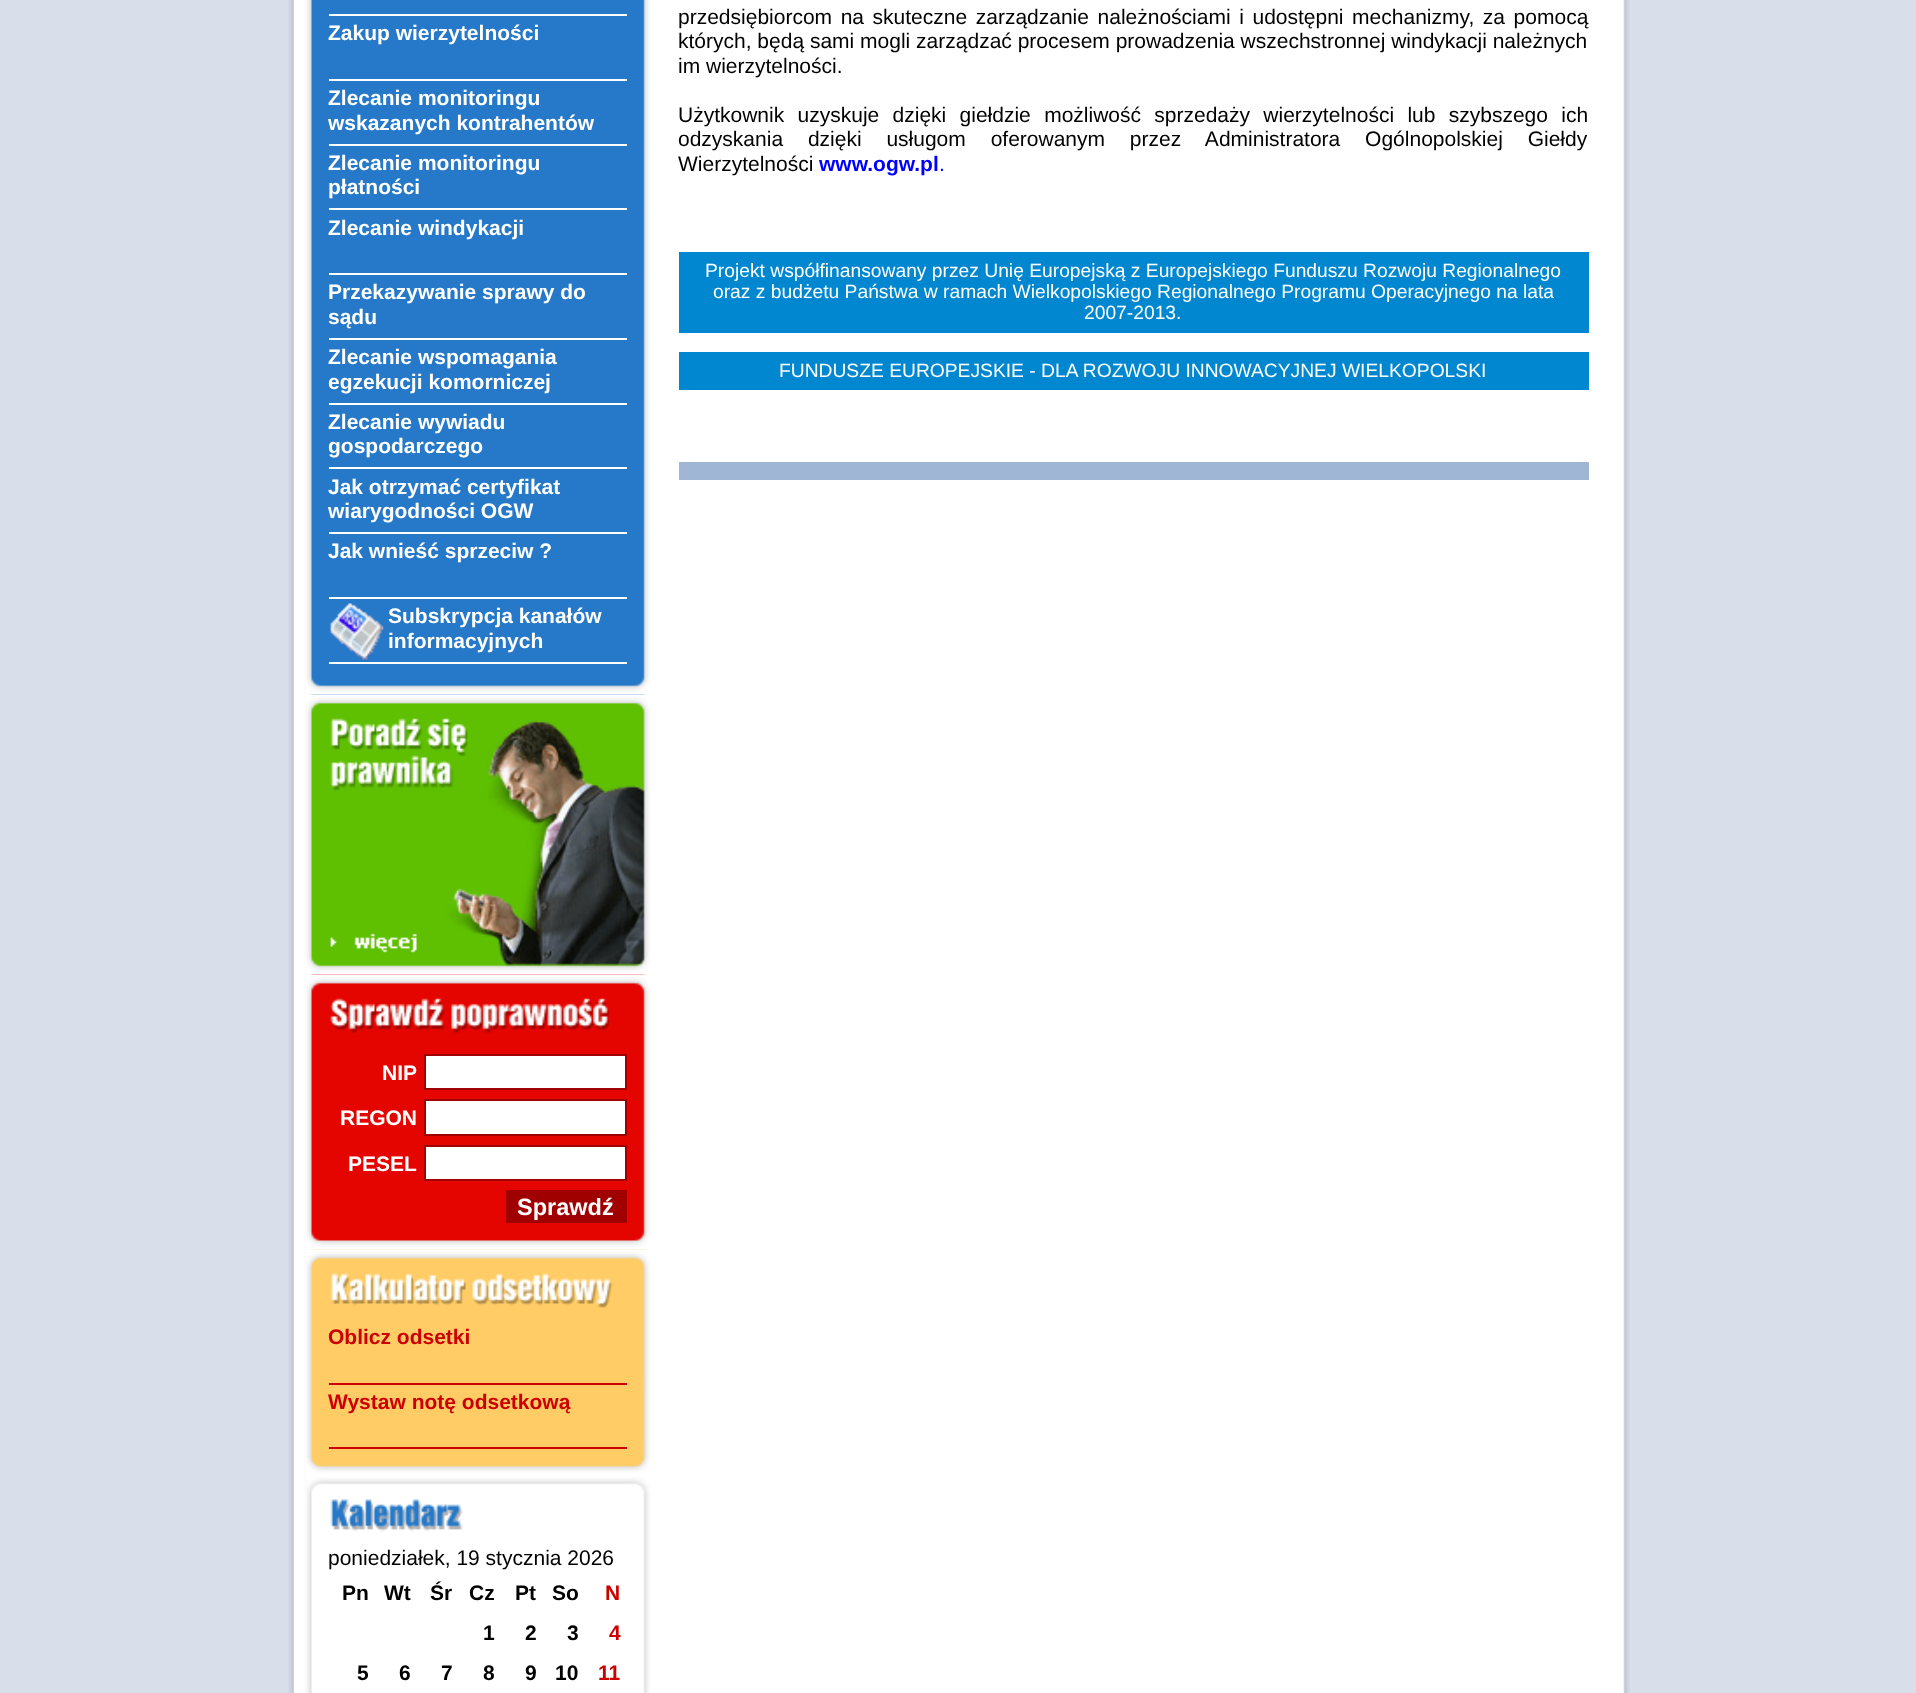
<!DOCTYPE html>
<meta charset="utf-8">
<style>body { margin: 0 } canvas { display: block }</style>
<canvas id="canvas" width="1916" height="1693"></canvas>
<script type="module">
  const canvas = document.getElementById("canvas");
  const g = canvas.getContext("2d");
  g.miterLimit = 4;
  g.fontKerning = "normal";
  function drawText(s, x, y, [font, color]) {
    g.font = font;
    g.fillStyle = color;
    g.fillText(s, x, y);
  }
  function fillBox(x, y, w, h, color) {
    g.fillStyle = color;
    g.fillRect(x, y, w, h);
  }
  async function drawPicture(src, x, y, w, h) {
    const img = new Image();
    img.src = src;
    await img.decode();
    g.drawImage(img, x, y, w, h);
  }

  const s1 = ["bold 21px Liberation Sans", "#FFFFFF"];
  const s2 = ["bold 23.5px Liberation Sans", "#FFFFFF"];
  const s3 = ["bold 21px Liberation Sans", "#CC0000"];
  const s4 = ["21px Liberation Sans", "#000000"];
  const s5 = ["bold 21px Liberation Sans", "#000000"];
  const s6 = ["bold 21px Liberation Sans", "#0000FF"];
  const s7 = ["21px Liberation Sans", "#0000FF"];
  const s8 = ["19.25px Liberation Sans", "#FFFFFF"];

  fillBox(0, 0, 1916, 1693, "#D9DFEA");
  await drawPicture("pic1.png", 288, 0, 1342, 1693);
  await drawPicture("pic5.png", 294, 694, 356, 281);
  await drawPicture("pic2.png", 294, 0, 356, 695);
  fillBox(329, 14, 298, 2, "#FFFFFF");
  fillBox(329, 79, 298, 2, "#FFFFFF");
  drawText("Zakup wierzytelności", 328, 40, s1);
  fillBox(329, 144, 298, 2, "#FFFFFF");
  drawText("Zlecanie monitoringu", 328, 105, s1);
  drawText("wskazanych kontrahentów", 328, 130, s1);
  fillBox(329, 208, 298, 2, "#FFFFFF");
  drawText("Zlecanie monitoringu", 328, 170, s1);
  drawText("płatności", 328, 194, s1);
  fillBox(329, 273, 298, 2, "#FFFFFF");
  drawText("Zlecanie windykacji", 328, 235, s1);
  fillBox(329, 338, 298, 2, "#FFFFFF");
  drawText("Przekazywanie sprawy do", 328, 299, s1);
  drawText("sądu", 328, 324, s1);
  fillBox(329, 403, 298, 2, "#FFFFFF");
  drawText("Zlecanie wspomagania", 328, 364, s1);
  drawText("egzekucji komorniczej", 328, 389, s1);
  fillBox(329, 467, 298, 2, "#FFFFFF");
  drawText("Zlecanie wywiadu", 328, 429, s1);
  drawText("gospodarczego", 328, 453, s1);
  fillBox(329, 532, 298, 2, "#FFFFFF");
  drawText("Jak otrzymać certyfikat", 328, 494, s1);
  drawText("wiarygodności OGW", 328, 518, s1);
  fillBox(329, 597, 298, 2, "#FFFFFF");
  drawText("Jak wnieść sprzeciw ?", 328, 558, s1);
  fillBox(329, 662, 298, 2, "#FFFFFF");
  await drawPicture("pic3.png", 330, 603, 54, 57);
  drawText("Subskrypcja kanałów", 388, 623, s1);
  drawText("informacyjnych", 388, 648, s1);
  await drawPicture("pic4.png", 306, 677, 344, 18);
  await drawPicture("pic6.png", 294, 974, 356, 276);
  await drawPicture("pic7.png", 306, 974, 344, 59);
  drawText("NIP", 382, 1080, s1);
  g.beginPath();
  g.rect(425, 1055, 201, 34);
  g.fill();
  g.strokeStyle = "#A10000";
  g.lineWidth = 2;
  g.stroke();
  drawText("REGON", 340, 1125, s1);
  g.beginPath();
  g.rect(425, 1100, 201, 35);
  g.fill();
  g.stroke();
  drawText("PESEL", 348, 1171, s1);
  g.beginPath();
  g.rect(425, 1146, 201, 34);
  g.fill();
  g.stroke();
  fillBox(506, 1190, 121, 33, "#A10000");
  drawText("Sprawdź", 517, 1215, s2);
  await drawPicture("pic8.png", 306, 1232, 344, 18);
  await drawPicture("pic9.png", 294, 1249, 356, 226);
  await drawPicture("pic10.png", 306, 1249, 344, 59);
  fillBox(329, 1383, 298, 2, "#CC0000");
  drawText("Oblicz odsetki", 328, 1344, s3);
  fillBox(329, 1447, 298, 2, "#CC0000");
  drawText("Wystaw notę odsetkową", 328, 1409, s3);
  await drawPicture("pic11.png", 306, 1458, 344, 17);
  await drawPicture("pic12.png", 294, 1475, 356, 218);
  await drawPicture("pic13.png", 306, 1475, 344, 57);
  drawText("poniedziałek, 19 stycznia 2026", 328, 1565, s4);
  drawText("Pn", 342, 1600, s5);
  drawText("Wt", 384, 1600, s5);
  drawText("Śr", 430, 1600, s5);
  drawText("Cz", 469, 1600, s5);
  drawText("Pt", 515, 1600, s5);
  drawText("So", 552, 1600, s5);
  drawText("N", 605, 1600, s3);
  drawText("1", 483, 1640, s5);
  drawText("2", 525, 1640, s5);
  drawText("3", 567, 1640, s5);
  drawText("4", 609, 1640, s3);
  drawText("5", 357, 1680, s5);
  drawText("6", 399, 1680, s5);
  drawText("7", 441, 1680, s5);
  drawText("8", 483, 1680, s5);
  drawText("9", 525, 1680, s5);
  drawText("10", 555, 1680, s5);
  drawText("11", 598, 1680, s3);
  g.wordSpacing = "2.75px";
  drawText("przedsiębiorcom na skuteczne zarządzanie należnościami i udostępni mechanizmy, za pomocą", 678, 24, s4);
  g.wordSpacing = "0px";
  drawText("których, będą sami mogli zarządzać procesem prowadzenia wszechstronnej windykacji należnych", 678, 48, s4);
  drawText("im wierzytelności.", 678, 73, s4);
  g.wordSpacing = "7.5px";
  drawText("Użytkownik uzyskuje dzięki giełdzie możliwość sprzedaży wierzytelności lub szybszego ich", 678, 122, s4);
  g.wordSpacing = "19px";
  drawText("odzyskania dzięki usługom oferowanym przez Administratora Ogólnopolskiej Giełdy", 678, 146, s4);
  g.wordSpacing = "0px";
  drawText("Wierzytelności", 678, 171, s4);
  drawText("www.ogw.pl", 819, 171, s6);
  drawText(".", 939, 171, s7);
  fillBox(679, 252, 910, 81, "#0087CF");
  drawText("Projekt współfinansowany przez Unię Europejską z Europejskiego Funduszu Rozwoju Regionalnego", 705, 277, s8);
  drawText("oraz z budżetu Państwa w ramach Wielkopolskiego Regionalnego Programu Operacyjnego na lata", 713, 298, s8);
  drawText("2007-2013.", 1084, 319, s8);
  fillBox(679, 352, 910, 38, "#0087CF");
  drawText("FUNDUSZE EUROPEJSKIE - DLA ROZWOJU INNOWACYJNEJ WIELKOPOLSKI", 779, 377, s8);
  fillBox(679, 462, 910, 18, "#9FB6D5");
</script>
